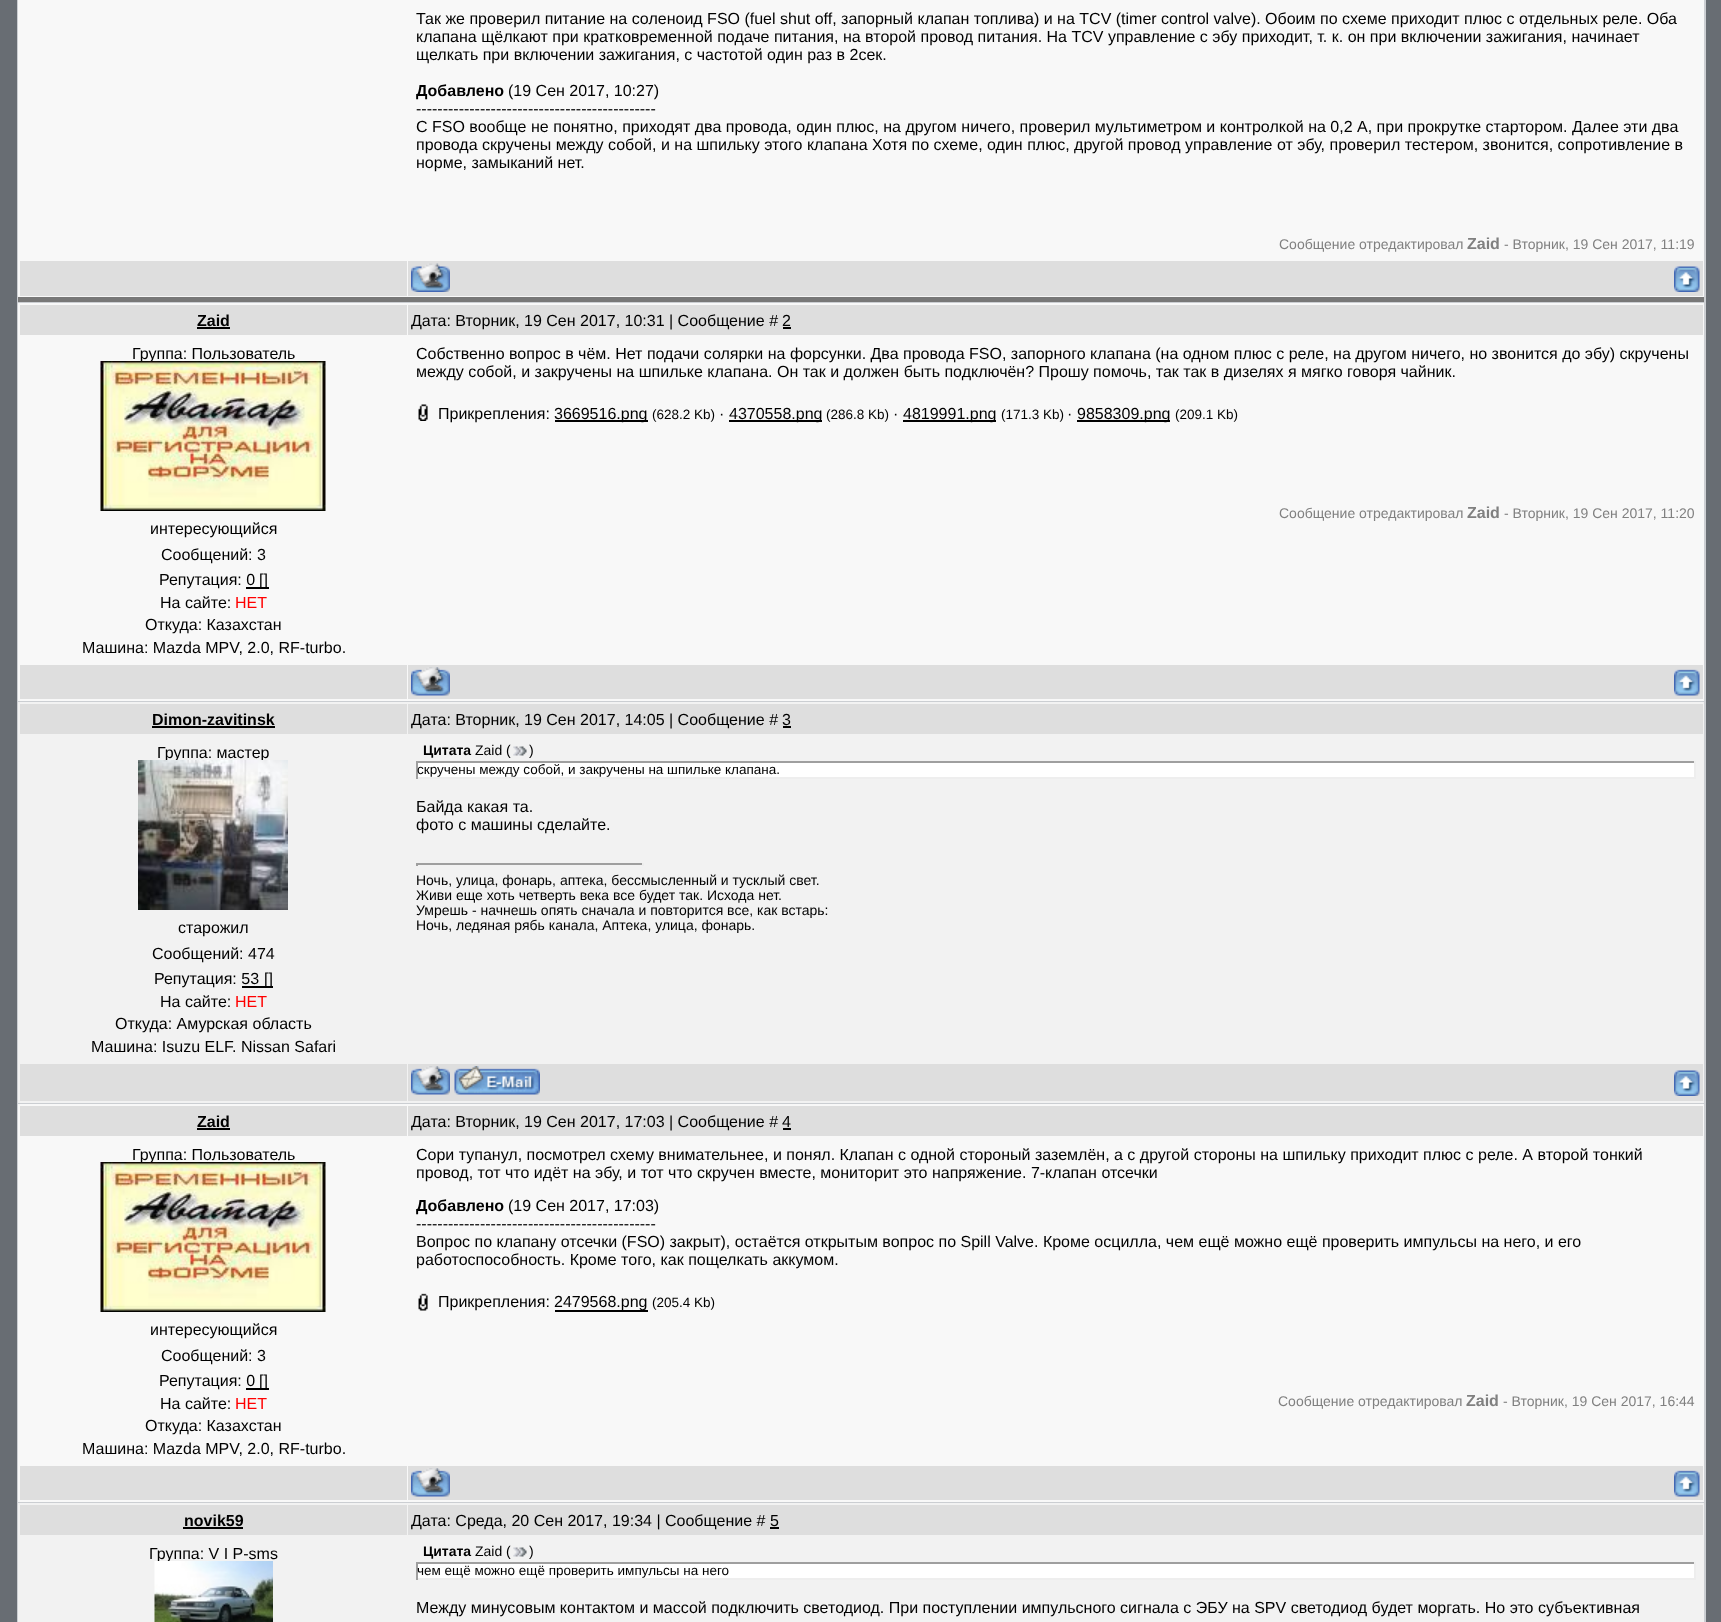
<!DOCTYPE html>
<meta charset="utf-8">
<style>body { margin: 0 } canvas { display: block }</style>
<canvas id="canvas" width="1721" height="1622"></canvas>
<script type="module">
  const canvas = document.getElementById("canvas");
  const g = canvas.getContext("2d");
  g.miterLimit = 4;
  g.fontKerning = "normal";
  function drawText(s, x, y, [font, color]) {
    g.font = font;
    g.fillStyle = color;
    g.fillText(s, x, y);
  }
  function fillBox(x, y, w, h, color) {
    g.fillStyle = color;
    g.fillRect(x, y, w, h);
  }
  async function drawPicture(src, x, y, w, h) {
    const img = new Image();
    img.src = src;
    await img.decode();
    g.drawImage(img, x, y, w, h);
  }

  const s1 = ["16px Liberation Sans", "#000000"];
  const s2 = ["bold 16px Liberation Sans", "#000000"];
  const s3 = ["14px Liberation Sans", "#808080"];
  const s4 = ["bold 16px Liberation Sans", "#808080"];
  const s5 = ["16px Liberation Sans", "#FF0000"];
  const s6 = ["13.5px Liberation Sans", "#000000"];
  const s7 = ["bold 14px Liberation Sans", "#000000"];
  const s8 = ["14px Liberation Sans", "#000000"];

  fillBox(0, 0, 1721, 1622, "#686D73");
  fillBox(17, 0, 1689, 1622, "#CBCED2");
  fillBox(18, 0, 1686, 297, "#F8F8F8");
  fillBox(18, 297, 1686, 5, "#787878");
  drawText("Так же проверил питание на соленоид FSO (fuel shut off, запорный клапан топлива) и на TCV (timer control valve). Обоим по схеме приходит плюс с отдельных реле. Оба", 416, 24, s1);
  drawText("клапана щёлкают при кратковременной подаче питания, на второй провод питания. На TCV управление с эбу приходит, т. к. он при включении зажигания, начинает", 416, 42, s1);
  drawText("щелкать при включении зажигания, с частотой один раз в 2сек.", 416, 60, s1);
  drawText("Добавлено", 416, 96, s2);
  drawText("(19 Сен 2017, 10:27)", 508, 96, s1);
  drawText("---------------------------------------------", 416, 114, s1);
  drawText("С FSO вообще не понятно, приходят два провода, один плюс, на другом ничего, проверил мультиметром и контролкой на 0,2 А, при прокрутке стартором. Далее эти два", 416, 132, s1);
  drawText("провода скручены между собой, и на шпильку этого клапана Хотя по схеме, один плюс, другой провод управление от эбу, проверил тестером, звонится, сопротивление в", 416, 150, s1);
  drawText("норме, замыканий нет.", 416, 168, s1);
  drawText("Сообщение отредактировал", 1279, 249, s3);
  drawText("Zaid", 1467, 249, s4);
  drawText("- Вторник, 19 Сен 2017, 11:19", 1504, 249, s3);
  fillBox(20, 261, 387, 35, "#DEDEDE");
  fillBox(408, 261, 1295, 35, "#DEDEDE");
  await drawPicture("pic1.png", 411, 263, 39, 29);
  await drawPicture("pic2.png", 1674, 266, 26, 26);
  fillBox(18, 303, 1686, 398, "#F8F8F8");
  fillBox(20, 305, 387, 30, "#DEDEDE");
  drawText("Zaid", 197, 326, s2);
  fillBox(197, 327, 33, 2, "#000000");
  fillBox(408, 305, 1295, 30, "#DEDEDE");
  drawText("Дата: Вторник, 19 Сен 2017, 10:31 | Сообщение #", 411, 326, s1);
  drawText("2", 782, 326, s1);
  fillBox(783, 327, 8, 2, "#000000");
  drawText("Группа: Пользователь", 132, 359, s1);
  await drawPicture("pic3.png", 100, 361, 226, 150);
  drawText("интересующийся", 150, 534, s1);
  drawText("Сообщений: 3", 161, 560, s1);
  drawText("Репутация: 0", 159, 585, s1);
  fillBox(246, 587, 23, 2, "#000000");
  drawText("[]", 259, 585, s1);
  drawText("На сайте:", 160, 608, s1);
  drawText("НЕТ", 235, 608, s5);
  drawText("Откуда: Казахстан", 145, 630, s1);
  drawText("Машина: Mazda MPV, 2.0, RF-turbo.", 82, 653, s1);
  drawText("Собственно вопрос в чём. Нет подачи солярки на форсунки. Два провода FSO, запорного клапана (на одном плюс с реле, на другом ничего, но звонится до эбу) скручены", 416, 359, s1);
  drawText("между собой, и закручены на шпильке клапана. Он так и должен быть подключён? Прошу помочь, так так в дизелях я мягко говоря чайник.", 416, 377, s1);
  await drawPicture("pic4.png", 418, 404, 10, 17);
  drawText("Прикрепления:", 438, 419, s1);
  fillBox(555, 420, 93, 2, "#000000");
  drawText("3669516.png", 554, 419, s1);
  drawText("(628.2 Kb)", 652, 419, s6);
  drawText("·", 719, 419, s1);
  fillBox(729, 420, 93, 2, "#000000");
  drawText("4370558.png", 729, 419, s1);
  drawText("(286.8 Kb)", 826, 419, s6);
  drawText("·", 893, 419, s1);
  fillBox(903, 420, 93, 2, "#000000");
  drawText("4819991.png", 903, 419, s1);
  drawText("(171.3 Kb)", 1001, 419, s6);
  drawText("·", 1067, 419, s1);
  fillBox(1077, 420, 93, 2, "#000000");
  drawText("9858309.png", 1077, 419, s1);
  drawText("(209.1 Kb)", 1175, 419, s6);
  drawText("Сообщение отредактировал", 1279, 518, s3);
  drawText("Zaid", 1467, 518, s4);
  drawText("- Вторник, 19 Сен 2017, 11:20", 1504, 518, s3);
  fillBox(20, 665, 387, 34, "#DEDEDE");
  fillBox(408, 665, 1295, 34, "#DEDEDE");
  await drawPicture("pic5.png", 411, 667, 39, 29);
  await drawPicture("pic6.png", 1674, 669, 26, 27);
  fillBox(18, 702, 1686, 401, "#F2F2F2");
  fillBox(20, 704, 387, 30, "#DEDEDE");
  drawText("Dimon-zavitinsk", 152, 725, s2);
  fillBox(152, 726, 123, 2, "#000000");
  fillBox(408, 704, 1295, 30, "#DEDEDE");
  drawText("Дата: Вторник, 19 Сен 2017, 14:05 | Сообщение #", 411, 725, s1);
  drawText("3", 782, 725, s1);
  fillBox(783, 726, 8, 2, "#000000");
  drawText("Группа: мастер", 157, 758, s1);
  await drawPicture("pic7.png", 138, 760, 150, 150);
  drawText("старожил", 178, 933, s1);
  drawText("Сообщений: 474", 152, 959, s1);
  drawText("Репутация: 53", 154, 984, s1);
  fillBox(242, 986, 31, 2, "#000000");
  drawText("[]", 264, 984, s1);
  drawText("На сайте:", 160, 1007, s1);
  drawText("НЕТ", 235, 1007, s5);
  drawText("Откуда: Амурская область", 115, 1029, s1);
  drawText("Машина: Isuzu ELF. Nissan Safari", 91, 1052, s1);
  drawText("Цитата", 423, 755, s7);
  drawText("Zaid (", 475, 755, s8);
  await drawPicture("pic8.png", 513, 746, 14, 10);
  drawText(")", 529, 755, s8);
  fillBox(418, 763, 1276, 14, "#FFFFFF");
  fillBox(416, 761, 1279, 2, "#9F9F9F");
  fillBox(1694, 761, 2, 18, "#EEEEEE");
  fillBox(416, 777, 1279, 2, "#EEEEEE");
  fillBox(416, 761, 2, 18, "#9F9F9F");
  drawText("скручены между собой, и закручены на шпильке клапана.", 417, 774, s6);
  drawText("Байда какая та.", 416, 812, s1);
  drawText("фото с машины сделайте.", 416, 830, s1);
  fillBox(416, 863, 228, 2, "#9F9F9F");
  fillBox(642, 863, 2, 3, "#EEEEEE");
  fillBox(416, 863, 2, 3, "#9F9F9F");
  drawText("Ночь, улица, фонарь, аптека, бессмысленный и тусклый свет.", 416, 885, s8);
  drawText("Живи еще хоть четверть века все будет так. Исхода нет.", 416, 900, s8);
  drawText("Умрешь - начнешь опять сначала и повторится все, как встарь:", 416, 915, s8);
  drawText("Ночь, ледяная рябь канала, Аптека, улица, фонарь.", 416, 930, s8);
  fillBox(20, 1064, 387, 37, "#DEDEDE");
  fillBox(408, 1064, 1295, 37, "#DEDEDE");
  await drawPicture("pic5.png", 411, 1066, 39, 29);
  await drawPicture("pic9.png", 454, 1066, 86, 29);
  await drawPicture("pic2.png", 1674, 1070, 26, 26);
  fillBox(18, 1104, 1686, 398, "#F8F8F8");
  fillBox(20, 1106, 387, 30, "#DEDEDE");
  drawText("Zaid", 197, 1127, s2);
  fillBox(197, 1128, 33, 2, "#000000");
  fillBox(408, 1106, 1295, 30, "#DEDEDE");
  drawText("Дата: Вторник, 19 Сен 2017, 17:03 | Сообщение #", 411, 1127, s1);
  drawText("4", 782, 1127, s1);
  fillBox(783, 1128, 8, 2, "#000000");
  drawText("Группа: Пользователь", 132, 1160, s1);
  await drawPicture("pic3.png", 100, 1162, 226, 150);
  drawText("интересующийся", 150, 1335, s1);
  drawText("Сообщений: 3", 161, 1361, s1);
  drawText("Репутация: 0", 159, 1386, s1);
  fillBox(246, 1388, 23, 2, "#000000");
  drawText("[]", 259, 1386, s1);
  drawText("На сайте:", 160, 1409, s1);
  drawText("НЕТ", 235, 1409, s5);
  drawText("Откуда: Казахстан", 145, 1431, s1);
  drawText("Машина: Mazda MPV, 2.0, RF-turbo.", 82, 1454, s1);
  drawText("Сори тупанул, посмотрел схему внимательнее, и понял. Клапан с одной стороный заземлён, а с другой стороны на шпильку приходит плюс с реле. А второй тонкий", 416, 1160, s1);
  drawText("провод, тот что идёт на эбу, и тот что скручен вместе, мониторит это напряжение. 7-клапан отсечки", 416, 1178, s1);
  drawText("Добавлено", 416, 1211, s2);
  drawText("(19 Сен 2017, 17:03)", 508, 1211, s1);
  drawText("---------------------------------------------", 416, 1229, s1);
  drawText("Вопрос по клапану отсечки (FSO) закрыт), остаётся открытым вопрос по Spill Valve. Кроме осцилла, чем ещё можно ещё проверить импульсы на него, и его", 416, 1247, s1);
  drawText("работоспособность. Кроме того, как пощелкать аккумом.", 416, 1265, s1);
  await drawPicture("pic10.png", 418, 1293, 10, 18);
  drawText("Прикрепления:", 438, 1307, s1);
  fillBox(555, 1310, 93, 2, "#000000");
  drawText("2479568.png", 554, 1307, s1);
  drawText("(205.4 Kb)", 652, 1307, s6);
  drawText("Сообщение отредактировал", 1278, 1406, s3);
  drawText("Zaid", 1466, 1406, s4);
  drawText("- Вторник, 19 Сен 2017, 16:44", 1503, 1406, s3);
  fillBox(20, 1466, 387, 34, "#DEDEDE");
  fillBox(408, 1466, 1295, 34, "#DEDEDE");
  await drawPicture("pic5.png", 411, 1468, 39, 29);
  await drawPicture("pic6.png", 1674, 1470, 26, 27);
  fillBox(18, 1503, 1686, 119, "#F2F2F2");
  fillBox(20, 1505, 387, 30, "#DEDEDE");
  drawText("novik59", 184, 1526, s2);
  fillBox(183, 1527, 60, 2, "#000000");
  fillBox(408, 1505, 1295, 30, "#DEDEDE");
  drawText("Дата: Среда, 20 Сен 2017, 19:34 | Сообщение #", 411, 1526, s1);
  drawText("5", 770, 1526, s1);
  fillBox(770, 1527, 9, 2, "#000000");
  drawText("Группа: V I P-sms", 149, 1559, s1);
  await drawPicture("pic11.png", 154, 1561, 119, 61);
  drawText("Цитата", 423, 1556, s7);
  drawText("Zaid (", 475, 1556, s8);
  await drawPicture("pic8.png", 513, 1547, 14, 10);
  drawText(")", 529, 1556, s8);
  fillBox(418, 1564, 1276, 14, "#FFFFFF");
  fillBox(416, 1562, 1279, 2, "#9F9F9F");
  fillBox(1694, 1562, 2, 18, "#EEEEEE");
  fillBox(416, 1578, 1279, 2, "#EEEEEE");
  fillBox(416, 1562, 2, 18, "#9F9F9F");
  drawText("чем ещё можно ещё проверить импульсы на него", 417, 1575, s6);
  drawText("Между минусовым контактом и массой подключить светодиод. При поступлении импульсного сигнала с ЭБУ на SPV светодиод будет моргать. Но это субъективная", 416, 1613, s1);
</script>
